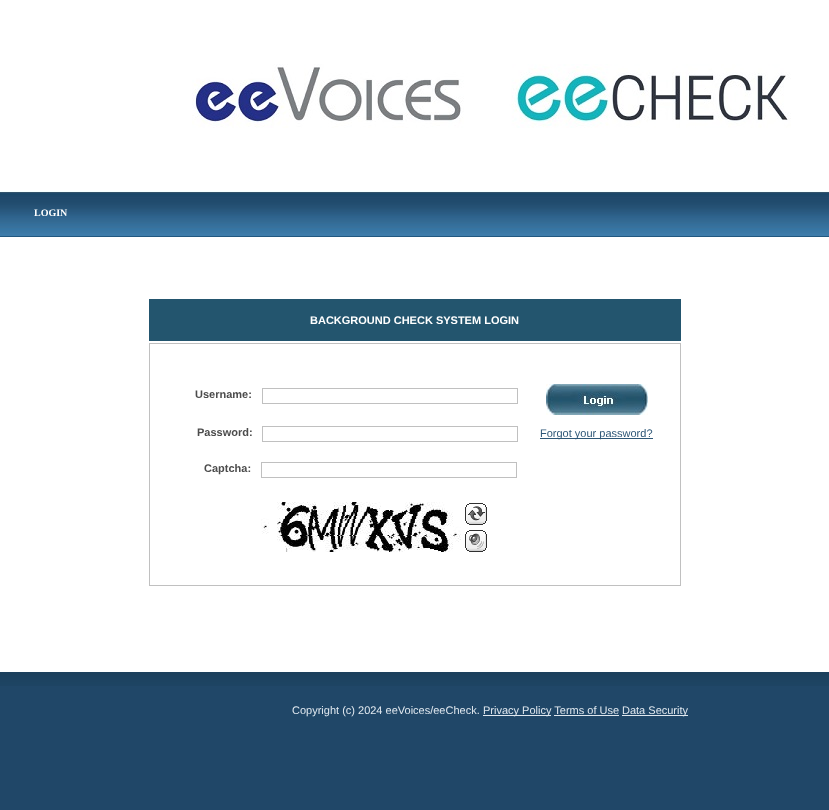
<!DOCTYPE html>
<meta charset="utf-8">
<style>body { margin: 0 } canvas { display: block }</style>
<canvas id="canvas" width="829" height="810"></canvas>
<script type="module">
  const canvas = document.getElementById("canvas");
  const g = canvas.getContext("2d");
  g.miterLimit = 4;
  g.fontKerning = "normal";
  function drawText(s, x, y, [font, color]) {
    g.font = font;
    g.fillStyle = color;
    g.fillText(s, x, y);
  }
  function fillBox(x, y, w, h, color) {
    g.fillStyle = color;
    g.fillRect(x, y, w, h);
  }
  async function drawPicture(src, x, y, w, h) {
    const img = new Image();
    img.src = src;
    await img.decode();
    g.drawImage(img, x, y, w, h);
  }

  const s1 = ["bold 10px Liberation Serif", "#FFFFFF"];
  const s2 = ["bold 11px Liberation Sans", "#FFFFFF"];
  const s3 = ["bold 11px Liberation Sans", "#4C4C4C"];
  const s4 = ["11px Liberation Sans", "#2E5777"];
  const s5 = ["11px Liberation Sans", "#E0E8EF"];

  fillBox(0, 0, 829, 810, "#204768");
  await drawPicture("pic1.png", 0, 0, 829, 237);
  await drawPicture("pic2.png", 192, 64, 599, 64);
  drawText("LOGIN", 34, 216, s1);
  fillBox(0, 237, 829, 435, "#FFFFFF");
  fillBox(149, 299, 532, 42, "#23556E");
  drawText("BACKGROUND CHECK SYSTEM LOGIN", 310, 324, s2);
  g.strokeStyle = "#C0C0C0";
  g.strokeRect(149.5, 343.5, 531, 242);
  drawText("Username:", 195, 398, s3);
  g.strokeRect(262.5, 388.5, 255, 15);
  drawText("Password:", 197, 436, s3);
  g.strokeRect(262.5, 426.5, 255, 15);
  await drawPicture("pic3.png", 546, 384, 102, 31);
  fillBox(540, 438, 113, 1, "#2E5777");
  drawText("Forgot your password?", 540, 437, s4);
  drawText("Captcha:", 204, 472, s3);
  g.strokeRect(261.5, 462.5, 255, 15);
  await drawPicture("pic4.png", 261, 502, 200, 50);
  await drawPicture("pic5.png", 465, 503, 22, 22);
  await drawPicture("pic6.png", 465, 530, 22, 22);
  await drawPicture("pic7.png", 0, 672, 829, 14);
  drawText("Copyright (c) 2024 eeVoices/eeCheck.", 292, 714, s5);
  fillBox(483, 715, 68, 1, "#E0E8EF");
  drawText("Privacy Policy Terms of Use", 483, 714, s5);
  fillBox(622, 715, 66, 1, "#E0E8EF");
  drawText("Data Security", 622, 714, s5);
  fillBox(554, 715, 65, 1, "#E0E8EF");
</script>
